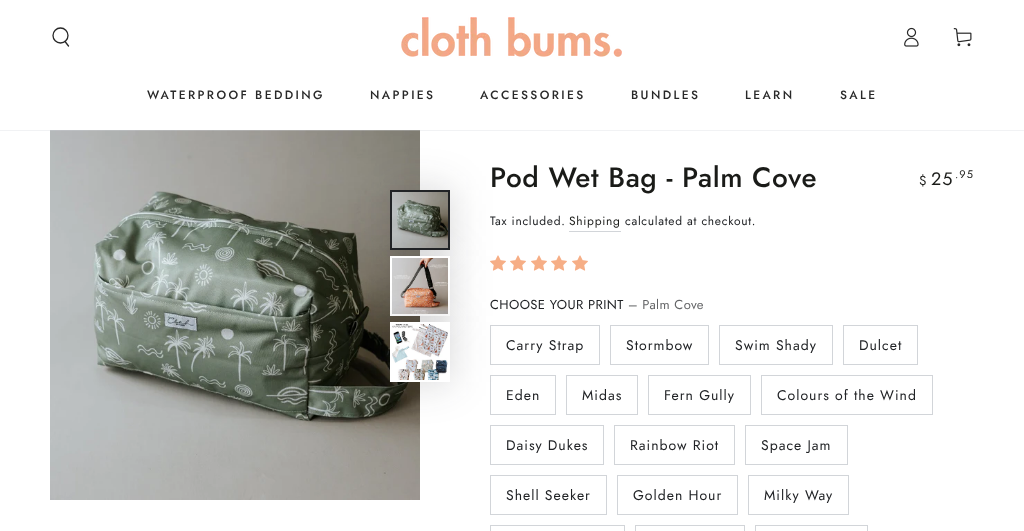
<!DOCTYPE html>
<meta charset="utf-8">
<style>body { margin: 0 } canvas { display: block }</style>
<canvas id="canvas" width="1024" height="531"></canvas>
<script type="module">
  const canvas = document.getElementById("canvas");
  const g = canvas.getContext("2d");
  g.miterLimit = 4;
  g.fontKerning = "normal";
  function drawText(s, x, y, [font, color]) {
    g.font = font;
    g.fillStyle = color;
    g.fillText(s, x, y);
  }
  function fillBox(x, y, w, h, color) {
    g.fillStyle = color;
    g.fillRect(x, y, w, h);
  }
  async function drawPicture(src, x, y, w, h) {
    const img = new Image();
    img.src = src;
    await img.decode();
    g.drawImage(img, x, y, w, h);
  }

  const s1 = ["500 12px Jost", "#282828"];
  const s2 = ["500 28px Jost", "#1A1B18"];
  const s3 = ["13px Jost", "#1A1B18"];
  const s4 = ["18px Jost", "#1A1B18"];
  const s5 = ["11px Jost", "#1A1B18"];
  const s6 = ["12px Jost", "#212326"];
  const s7 = ["12px Jost", "#1A1B18"];
  const s8 = ["13px Jost", "#212326"];
  const s9 = ["13px Jost", "#646567"];
  const s10 = ["14px Jost", "#212326"];

  fillBox(0, 0, 1024, 531, "#FFFFFF");
  await drawPicture("pic7.png", 50, 130, 370, 370);
  await drawPicture("pic8.png", 490, 255, 16, 16);
  await drawPicture("pic8.png", 510, 255, 16, 16);
  g.fillStyle = "rgba(33, 35, 38, 0.2)";
  g.filter = "blur(20px)";
  g.beginPath();
  g.rect(390, 190, 60, 60);
  g.fill();
  g.filter = "none";
  fillBox(0, 130, 1024, 1, "rgba(210, 213, 217, 0.3)");
  g.beginPath();
  g.arc(60.5, 35.5, 7.5, 0, Math.PI * 2);
  g.strokeStyle = "#282828";
  g.lineWidth = 1.3;
  g.stroke();
  g.beginPath();
  g.moveTo(65, 41.5);
  g.lineTo(68.5, 46);
  g.lineCap = "round";
  g.stroke();
  await drawPicture("pic1.png", 401, 17, 221, 40);
  await drawPicture("pic2.png", 904, 27, 15, 20);
  await drawPicture("pic3.png", 953, 28, 19, 19);
  g.letterSpacing = "2.4px";
  drawText("WATERPROOF BEDDING", 147, 99, s1);
  drawText("NAPPIES", 370, 99, s1);
  drawText("ACCESSORIES", 480, 99, s1);
  drawText("BUNDLES", 631, 99, s1);
  drawText("LEARN", 745, 99, s1);
  drawText("SALE", 840, 99, s1);
  await drawPicture("pic4.png", 392, 192, 56, 56);
  g.strokeStyle = "#212326";
  g.lineWidth = 2;
  g.strokeRect(391, 191, 58, 58);
  g.strokeStyle = "#D2D5D9";
  g.lineWidth = 1;
  g.strokeRect(490.5, 325.5, 109, 39);
  g.strokeRect(490.5, 375.5, 65, 39);
  g.fillStyle = "rgba(33, 35, 38, 0.2)";
  g.filter = "blur(20px)";
  g.beginPath();
  g.rect(390, 256, 60, 60);
  g.fill();
  g.filter = "none";
  await drawPicture("pic5.png", 392, 258, 56, 56);
  g.strokeStyle = "#FFFFFF";
  g.lineWidth = 2;
  g.strokeRect(391, 257, 58, 58);
  g.strokeStyle = "#D2D5D9";
  g.lineWidth = 1;
  g.strokeRect(490.5, 425.5, 113, 39);
  g.filter = "blur(20px)";
  g.beginPath();
  g.rect(390, 322, 60, 60);
  g.fill();
  g.filter = "none";
  await drawPicture("pic6.png", 392, 324, 56, 56);
  g.strokeStyle = "#FFFFFF";
  g.lineWidth = 2;
  g.strokeRect(391, 323, 58, 58);
  g.letterSpacing = "0.6px";
  drawText("Pod Wet Bag - Palm Cove", 490, 187, s2);
  g.letterSpacing = "1px";
  drawText("$", 919, 185, s3);
  drawText("25", 931, 185, s4);
  drawText(".95", 955, 178, s5);
  g.letterSpacing = "0.7px";
  drawText("Tax included.", 490, 225, s6);
  drawText("Shipping", 569, 225, s7);
  fillBox(569, 231, 52, 1, "#D2D5D9");
  drawText("calculated at checkout.", 625, 225, s6);
  await drawPicture("pic8.png", 531, 255, 16, 16);
  await drawPicture("pic8.png", 551, 255, 16, 16);
  await drawPicture("pic8.png", 572, 255, 16, 16);
  g.letterSpacing = "0.4px";
  drawText("CHOOSE YOUR PRINT", 490, 309, s8);
  drawText("– Palm Cove", 628, 309, s9);
  g.letterSpacing = "1px";
  drawText("Carry Strap", 506, 350, s10);
  g.strokeStyle = "#D2D5D9";
  g.lineWidth = 1;
  g.strokeRect(610.5, 325.5, 98, 39);
  drawText("Stormbow", 626, 350, s10);
  g.strokeRect(719.5, 325.5, 113, 39);
  drawText("Swim Shady", 735, 350, s10);
  g.strokeRect(843.5, 325.5, 74, 39);
  drawText("Dulcet", 859, 350, s10);
  drawText("Eden", 506, 400, s10);
  g.strokeRect(566.5, 375.5, 71, 39);
  drawText("Midas", 582, 400, s10);
  g.strokeRect(648.5, 375.5, 102, 39);
  drawText("Fern Gully", 664, 400, s10);
  g.strokeRect(761.5, 375.5, 171, 39);
  drawText("Colours of the Wind", 777, 400, s10);
  drawText("Daisy Dukes", 506, 450, s10);
  g.strokeRect(614.5, 425.5, 120, 39);
  drawText("Rainbow Riot", 630, 450, s10);
  g.strokeRect(745.5, 425.5, 102, 39);
  drawText("Space Jam", 761, 450, s10);
  g.strokeRect(490.5, 475.5, 116, 39);
  drawText("Shell Seeker", 506, 500, s10);
  g.strokeRect(617.5, 475.5, 120, 39);
  drawText("Golden Hour", 633, 500, s10);
  g.strokeRect(748.5, 475.5, 100, 39);
  drawText("Milky Way", 764, 500, s10);
  g.strokeRect(490.5, 525.5, 134, 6);
  g.strokeRect(635.5, 525.5, 109, 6);
  g.strokeRect(755.5, 525.5, 112, 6);
</script>
